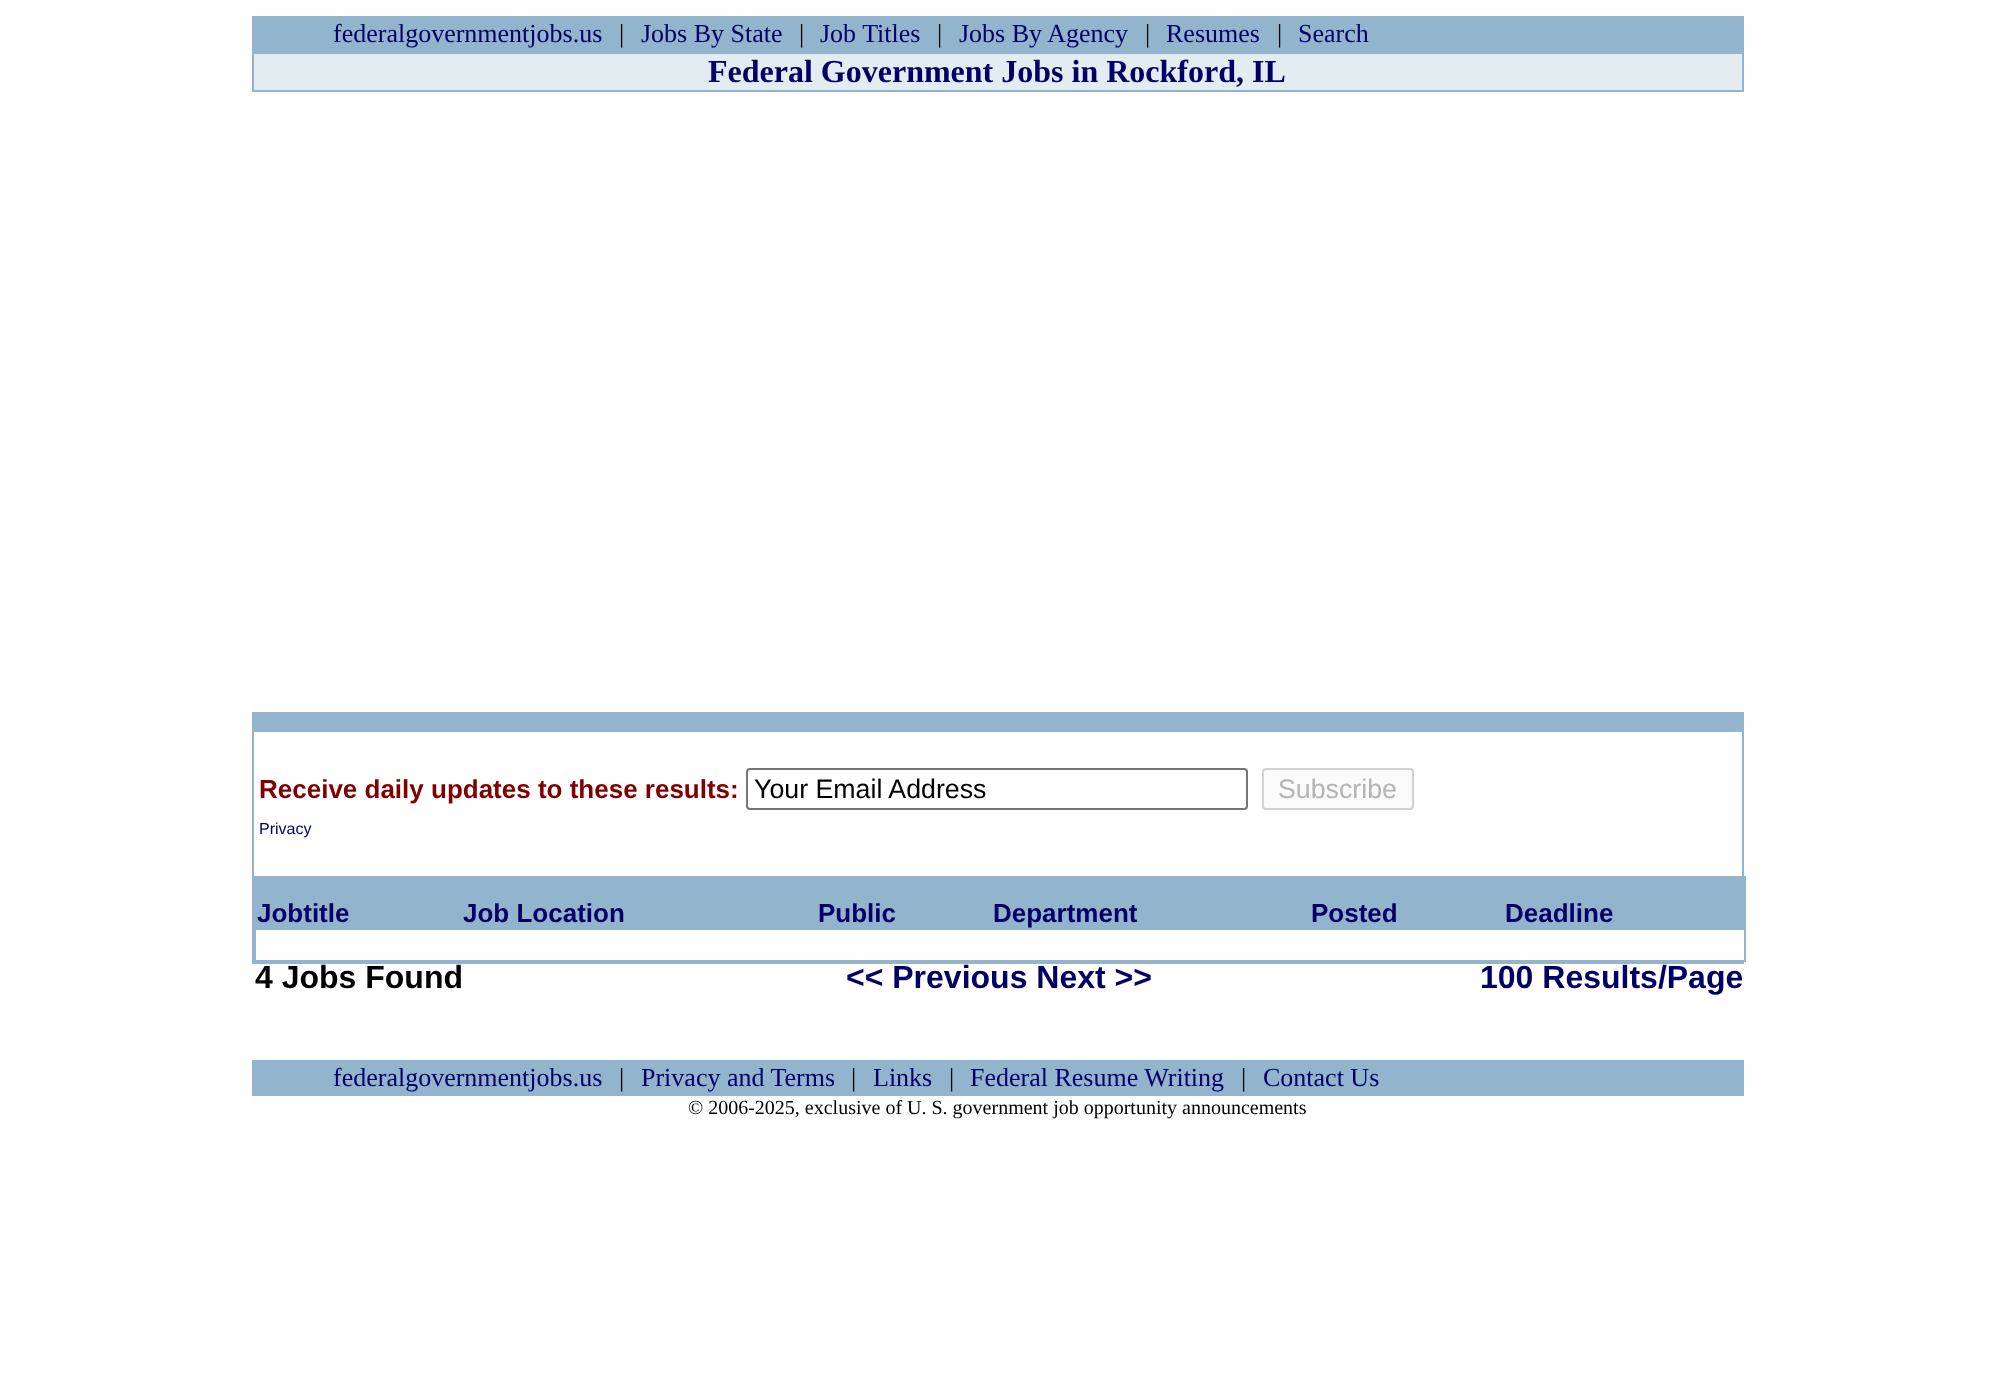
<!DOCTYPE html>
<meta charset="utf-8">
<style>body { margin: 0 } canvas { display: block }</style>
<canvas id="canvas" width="1993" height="1399"></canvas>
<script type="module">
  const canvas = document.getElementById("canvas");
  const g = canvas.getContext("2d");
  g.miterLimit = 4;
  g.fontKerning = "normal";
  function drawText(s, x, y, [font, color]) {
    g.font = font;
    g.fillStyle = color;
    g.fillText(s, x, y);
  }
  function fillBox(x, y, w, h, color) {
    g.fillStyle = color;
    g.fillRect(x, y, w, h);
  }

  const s1 = ["26px Liberation Serif", "#000066"];
  const s2 = ["26px Liberation Serif", "#000000"];
  const s3 = ["bold 32px Liberation Serif", "#000066"];
  const s4 = ["bold 26px Liberation Sans", "#800000"];
  const s5 = ["26.75px Liberation Sans", "#000000"];
  const s6 = ["26.75px Liberation Sans", "#B4B4B4"];
  const s7 = ["16px Liberation Sans", "#000066"];
  const s8 = ["bold 26px Liberation Sans", "#000066"];
  const s9 = ["bold 32px Liberation Sans", "#000000"];
  const s10 = ["bold 32px Liberation Sans", "#000066"];
  const s11 = ["20px Liberation Serif", "#000000"];

  fillBox(0, 0, 1993, 1399, "#FFFFFF");
  fillBox(252, 16, 1492, 36, "#92B4CC");
  drawText("federalgovernmentjobs.us", 333, 42, s1);
  drawText("|", 619, 42, s2);
  drawText("Jobs By State", 641, 42, s1);
  drawText("|", 799, 42, s2);
  drawText("Job Titles", 820, 42, s1);
  drawText("|", 937, 42, s2);
  drawText("Jobs By Agency", 959, 42, s1);
  drawText("|", 1145, 42, s2);
  drawText("Resumes", 1166, 42, s1);
  drawText("|", 1277, 42, s2);
  drawText("Search", 1298, 42, s1);
  g.fillStyle = "#E2ECF1";
  g.beginPath();
  g.rect(253, 53, 1490, 38);
  g.fill();
  g.strokeStyle = "#92B4CC";
  g.lineWidth = 2;
  g.stroke();
  drawText("Federal Government Jobs in Rockford, IL", 708, 82, s3);
  fillBox(254, 712, 1488, 20, "#92B4CC");
  fillBox(1742, 712, 2, 164, "#92B4CC");
  fillBox(252, 962, 1492, 2, "#92B4CC");
  fillBox(252, 712, 2, 252, "#92B4CC");
  drawText("Receive daily updates to these results:", 259, 798, s4);
  g.beginPath();
  g.roundRect(747, 769, 500, 40, 3);
  g.strokeStyle = "#767676";
  g.stroke();
  drawText("Your Email Address", 754, 798, s5);
  g.fillStyle = "#FAFAFA";
  g.beginPath();
  g.roundRect(1263, 769, 150, 40, 3);
  g.fill();
  g.strokeStyle = "#D2D2D2";
  g.stroke();
  drawText("Subscribe", 1278, 798, s6);
  drawText("Privacy", 259, 834, s7);
  fillBox(256, 876, 1488, 20, "#92B4CC");
  fillBox(1744, 876, 2, 86, "#92B4CC");
  fillBox(254, 960, 1492, 2, "#92B4CC");
  fillBox(254, 876, 2, 86, "#92B4CC");
  fillBox(256, 896, 1488, 34, "#92B4CC");
  drawText("Jobtitle", 257, 922, s8);
  drawText("Job Location", 463, 922, s8);
  drawText("Public", 818, 922, s8);
  drawText("Department", 993, 922, s8);
  drawText("Posted", 1311, 922, s8);
  drawText("Deadline", 1505, 922, s8);
  drawText("4 Jobs Found", 255, 988, s9);
  drawText("<< Previous Next >>", 846, 988, s10);
  drawText("100 Results/Page", 1480, 988, s10);
  fillBox(252, 1060, 1492, 36, "#92B4CC");
  drawText("federalgovernmentjobs.us", 333, 1086, s1);
  drawText("|", 619, 1086, s2);
  drawText("Privacy and Terms", 641, 1086, s1);
  drawText("|", 851, 1086, s2);
  drawText("Links", 873, 1086, s1);
  drawText("|", 949, 1086, s2);
  drawText("Federal Resume Writing", 970, 1086, s1);
  drawText("|", 1241, 1086, s2);
  drawText("Contact Us", 1263, 1086, s1);
  drawText("© 2006-2025, exclusive of U. S. government job opportunity announcements", 688, 1114, s11);
</script>
